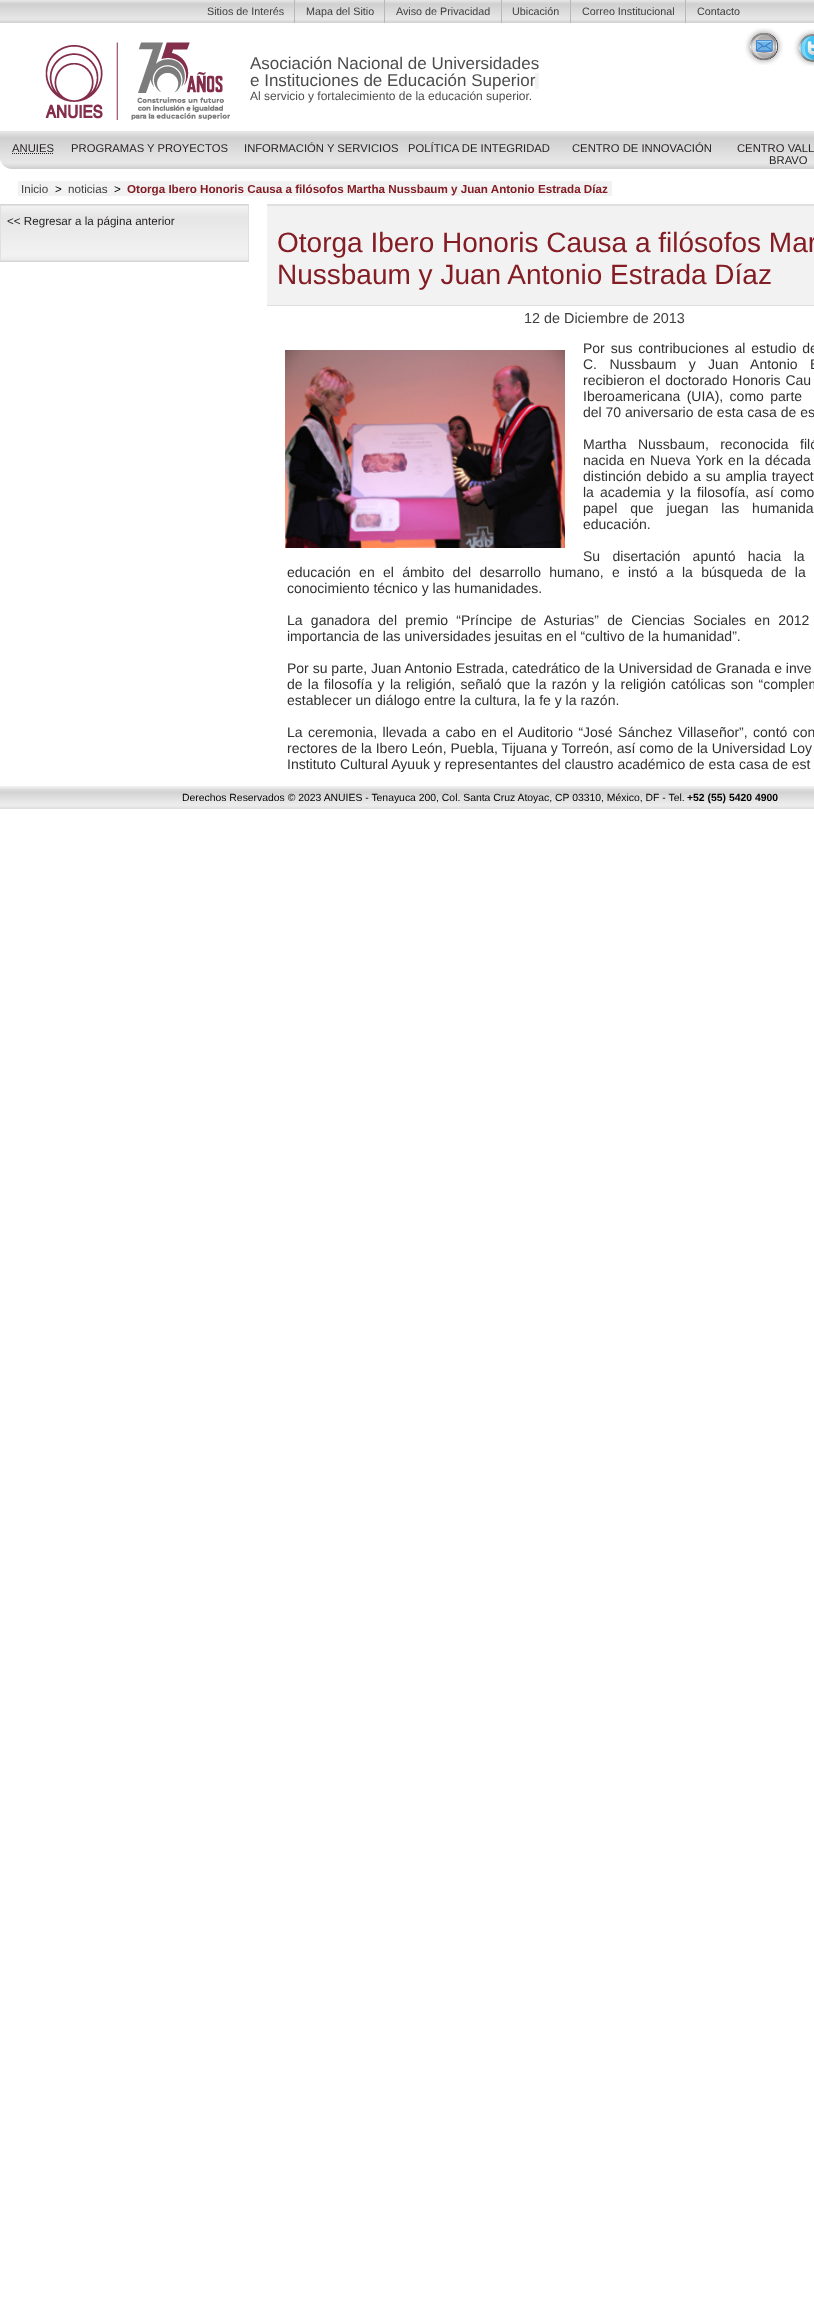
<!DOCTYPE html>
<meta charset="utf-8">
<style>body { margin: 0 } canvas { display: block }</style>
<canvas id="canvas" width="814" height="2307"></canvas>
<script type="module">
  const canvas = document.getElementById("canvas");
  const g = canvas.getContext("2d");
  g.miterLimit = 4;
  g.fontKerning = "normal";
  function drawText(s, x, y, [font, color]) {
    g.font = font;
    g.fillStyle = color;
    g.fillText(s, x, y);
  }
  function fillBox(x, y, w, h, color) {
    g.fillStyle = color;
    g.fillRect(x, y, w, h);
  }
  async function drawPicture(src, x, y, w, h) {
    const img = new Image();
    img.src = src;
    await img.decode();
    g.drawImage(img, x, y, w, h);
  }

  const s1 = ["10.75px Liberation Sans", "#404040"];
  const s2 = ["17px Liberation Sans", "#4F4C4D"];
  const s3 = ["12px Liberation Sans", "#4F4C4D"];
  const s4 = ["11.25px Liberation Sans", "#231F20"];
  const s5 = ["11.65px Liberation Sans", "#404040"];
  const s6 = ["11.65px Liberation Sans", "#000000"];
  const s7 = ["bold 11.65px Liberation Sans", "#841C24"];
  const s8 = ["11.65px Liberation Sans", "#231F20"];
  const s9 = ["28px Liberation Sans", "#841C24"];
  const s10 = ["14.4px Liberation Sans", "#404040"];
  const s11 = ["14px Liberation Sans", "#303030"];
  const s12 = ["10.4px Liberation Sans", "#000000"];
  const s13 = ["bold 10.4px Liberation Sans", "#000000"];

  fillBox(0, 0, 814, 2307, "#FFFFFF");
  g.fillStyle = "#D0D0D0";
  g.beginPath();
  g.moveTo(0, 0);
  g.lineTo(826, 0);
  g.lineTo(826, 157);
  g.bezierCurveTo(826, 163.5, 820.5, 169, 814, 169);
  g.lineTo(12, 169);
  g.bezierCurveTo(5.5, 169, 0, 163.5, 0, 157);
  g.closePath();
  g.fill();
  await drawPicture("pic1.png", 0, 0, 814, 168);
  fillBox(294, 0, 1, 23, "#B8B8B8");
  drawText("Sitios de Interés", 207, 15, s1);
  fillBox(384, 0, 1, 23, "#B8B8B8");
  drawText("Mapa del Sitio", 306, 15, s1);
  fillBox(501, 0, 1, 23, "#B8B8B8");
  drawText("Aviso de Privacidad", 396, 15, s1);
  fillBox(570, 0, 1, 23, "#B8B8B8");
  drawText("Ubicación", 512, 15, s1);
  fillBox(685, 0, 1, 23, "#B8B8B8");
  drawText("Correo Institucional", 582, 15, s1);
  drawText("Contacto", 697, 15, s1);
  fillBox(0, 23, 814, 108, "#FFFFFF");
  await drawPicture("pic2.png", 745, 28, 38, 37);
  await drawPicture("pic3.png", 794, 29, 20, 37);
  await drawPicture("pic4.png", 45, 42, 185, 78);
  fillBox(535, 73, 4, 16, "#F2F2F2");
  drawText("Asociación Nacional de Universidades", 250, 69, s2);
  drawText("e Instituciones de Educación Superior", 250, 86, s2);
  drawText("Al servicio y fortalecimiento de la educación superior.", 250, 100, s3);
  drawText("ANUIES", 12, 152, s4);
  g.beginPath();
  g.moveTo(12, 153.5);
  g.lineTo(54, 153.5);
  g.strokeStyle = "#231F20";
  g.setLineDash([1, 1]);
  g.stroke();
  drawText("PROGRAMAS Y PROYECTOS", 71, 152, s4);
  drawText("INFORMACIÓN Y SERVICIOS", 244, 152, s4);
  drawText("POLÍTICA DE INTEGRIDAD", 408, 152, s4);
  drawText("CENTRO DE INNOVACIÓN", 572, 152, s4);
  drawText("CENTRO VALL", 737, 152, s4);
  drawText("BRAVO", 769, 164, s4);
  fillBox(18, 181, 594, 15, "#F2F2F2");
  drawText("Inicio", 21, 193, s5);
  drawText(">", 55, 193, s6);
  drawText("noticias", 68, 193, s5);
  drawText(">", 114, 193, s6);
  drawText("Otorga Ibero Honoris Causa a filósofos Martha Nussbaum y Juan Antonio Estrada Díaz", 127, 193, s7);
  fillBox(0, 204, 249, 58, "#D6D6D6");
  fillBox(1, 206, 247, 54, "#E6E6E6");
  await drawPicture("pic5.png", 1, 206, 247, 54);
  g.strokeStyle = "#E0E0E0";
  g.setLineDash([]);
  g.strokeRect(0.5, 205.5, 248, 55);
  drawText("<< Regresar a la página anterior", 7, 225, s8);
  fillBox(267, 206, 547, 99, "#F2F2F2");
  fillBox(267, 204, 547, 2, "#E0E0E0");
  fillBox(267, 305, 547, 1, "#E0E0E0");
  drawText("Otorga Ibero Honoris Causa a filósofos Mar", 277, 252, s9);
  drawText("Nussbaum y Juan Antonio Estrada Díaz", 277, 284, s9);
  drawText("12 de Diciembre de 2013", 524, 323, s10);
  g.wordSpacing = "2px";
  drawText("Por sus contribuciones al estudio de", 583, 353, s11);
  g.wordSpacing = "8.5px";
  drawText("C. Nussbaum y Juan Antonio E", 583, 369, s11);
  g.wordSpacing = "1px";
  drawText("recibieron el doctorado Honoris Cau", 583, 385, s11);
  g.wordSpacing = "2.5px";
  drawText("Iberoamericana (UIA), como parte", 583, 401, s11);
  g.wordSpacing = "0px";
  drawText("del 70 aniversario de esta casa de es", 583, 417, s11);
  g.wordSpacing = "7.5px";
  drawText("Martha Nussbaum, reconocida filó", 583, 449, s11);
  g.wordSpacing = "1.25px";
  drawText("nacida en Nueva York en la década", 583, 465, s11);
  g.wordSpacing = "1px";
  drawText("distinción debido a su amplia trayect", 583, 481, s11);
  g.wordSpacing = "2.25px";
  drawText("la academia y la filosofía, así como", 583, 497, s11);
  g.wordSpacing = "9px";
  drawText("papel que juegan las humanida", 583, 513, s11);
  g.wordSpacing = "0px";
  drawText("educación.", 583, 529, s11);
  g.wordSpacing = "8.5px";
  drawText("Su disertación apuntó hacia la", 583, 561, s11);
  g.wordSpacing = "4.4px";
  drawText("educación en el ámbito del desarrollo humano, e instó a la búsqueda de la", 287, 577, s11);
  g.wordSpacing = "0px";
  drawText("conocimiento técnico y las humanidades.", 287, 593, s11);
  g.wordSpacing = "4.4px";
  drawText("La ganadora del premio “Príncipe de Asturias” de Ciencias Sociales en 2012", 287, 625, s11);
  g.wordSpacing = "0px";
  drawText("importancia de las universidades jesuitas en el “cultivo de la humanidad”.", 287, 641, s11);
  drawText("Por su parte, Juan Antonio Estrada, catedrático de la Universidad de Granada e inve", 287, 673, s11);
  g.wordSpacing = "1.4px";
  drawText("de la filosofía y la religión, señaló que la razón y la religión católicas son “complem", 287, 689, s11);
  g.wordSpacing = "0px";
  drawText("establecer un diálogo entre la cultura, la fe y la razón.", 287, 705, s11);
  g.wordSpacing = "1.5px";
  drawText("La ceremonia, llevada a cabo en el Auditorio “José Sánchez Villaseñor”, contó con", 287, 737, s11);
  g.wordSpacing = "0px";
  drawText("rectores de la Ibero León, Puebla, Tijuana y Torreón, así como de la Universidad Loy", 287, 753, s11);
  drawText("Instituto Cultural Ayuuk y representantes del claustro académico de esta casa de est", 287, 769, s11);
  await drawPicture("pic6.png", 285, 350, 280, 198);
  fillBox(0, 786, 814, 23, "#D0D0D0");
  await drawPicture("pic7.png", 0, 786, 814, 23);
  await drawPicture("pic8.png", 0, 786, 814, 22);
  drawText("Derechos Reservados © 2023 ANUIES - Tenayuca 200, Col. Santa Cruz Atoyac, CP 03310, México, DF - Tel.", 182, 801, s12);
  drawText("+52 (55) 5420 4900", 687, 801, s13);
</script>
